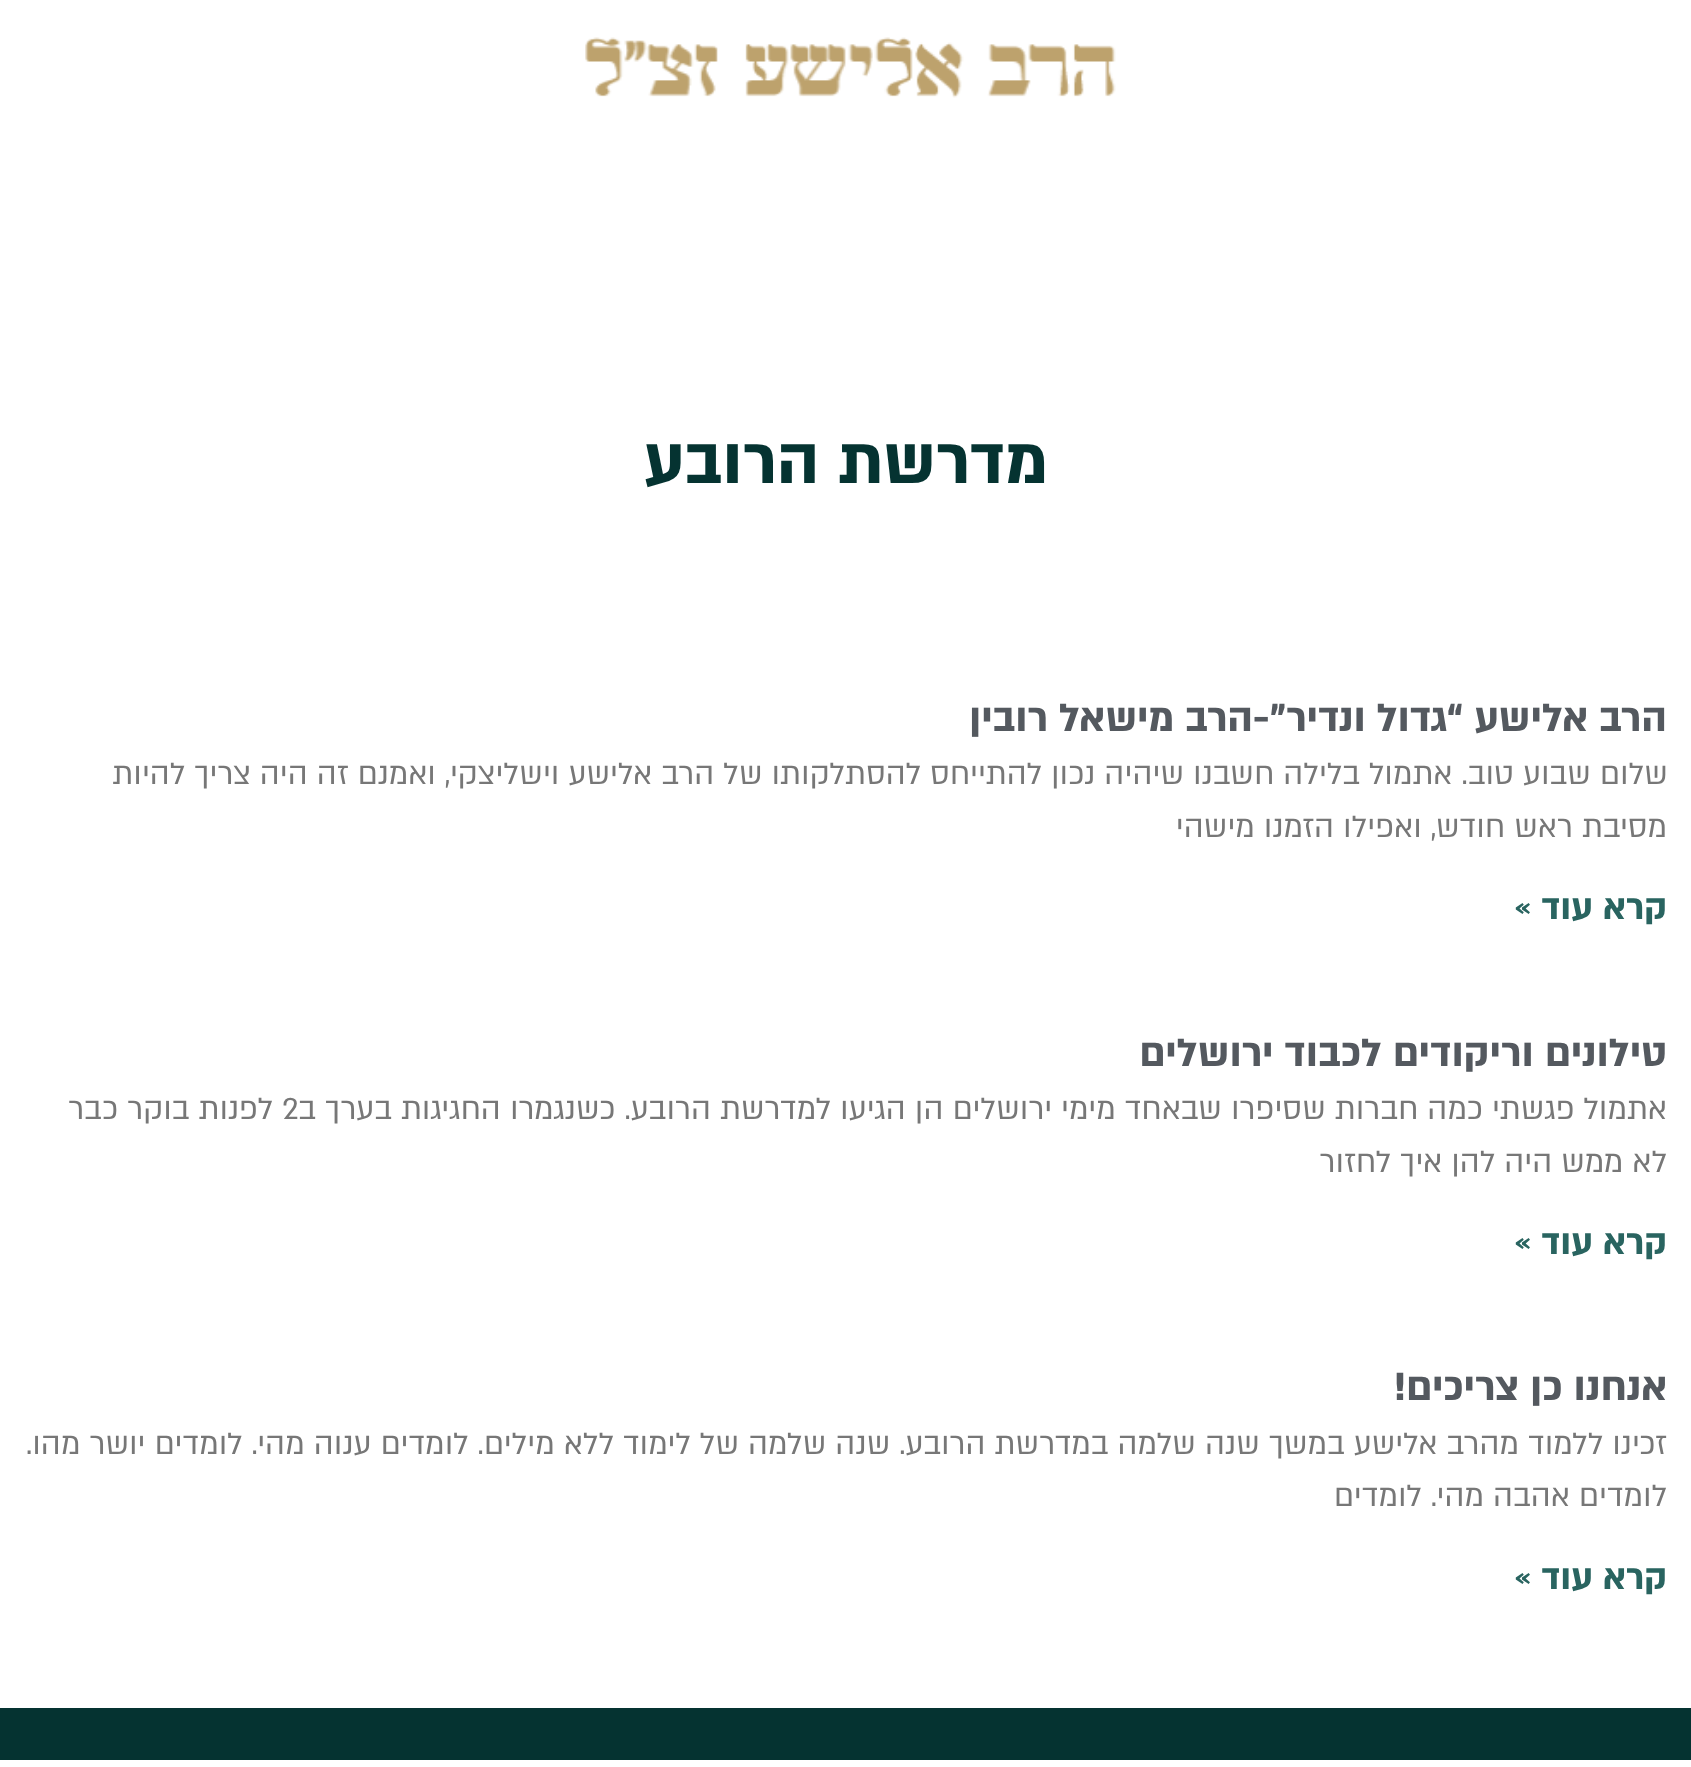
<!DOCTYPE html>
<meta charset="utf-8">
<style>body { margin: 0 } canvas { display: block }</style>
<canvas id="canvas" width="1691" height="1767"></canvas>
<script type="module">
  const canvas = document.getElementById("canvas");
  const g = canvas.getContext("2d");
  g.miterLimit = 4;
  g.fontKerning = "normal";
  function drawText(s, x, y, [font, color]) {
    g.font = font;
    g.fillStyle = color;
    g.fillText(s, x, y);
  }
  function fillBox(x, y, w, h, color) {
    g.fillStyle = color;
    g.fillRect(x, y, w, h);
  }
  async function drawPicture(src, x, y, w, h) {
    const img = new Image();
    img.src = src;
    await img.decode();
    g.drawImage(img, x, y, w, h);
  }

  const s1 = ["bold 75px 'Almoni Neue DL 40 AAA'", "#053331"];
  const s2 = ["bold 45px 'Almoni Neue DL 40 AAA'", "#54595F"];
  const s3 = ["35px 'Almoni Neue DL 40 AAA'", "#777777"];
  const s4 = ["bold 40px 'Almoni Neue DL 40 AAA'", "#296460"];

  fillBox(0, 0, 1691, 1767, "#FFFFFF");
  await drawPicture("pic1.png", 585, 37, 531, 61);
  g.direction = "rtl";
  drawText("מדרשת הרובע", 1048, 483, s1);
  drawText("הרב אלישע “גדול ונדיר”-הרב מישאל רובין", 1667, 731, s2);
  drawText("שלום שבוע טוב. אתמול בלילה חשבנו שיהיה נכון להתייחס להסתלקותו של הרב אלישע וישליצקי, ואמנם זה היה צריך להיות", 1668, 784, s3);
  drawText("מסיבת ראש חודש, ואפילו הזמנו מישהי", 1667, 837, s3);
  drawText("קרא עוד »", 1667, 919, s4);
  drawText("טילונים וריקודים לכבוד ירושלים", 1667, 1066, s2);
  drawText("אתמול פגשתי כמה חברות שסיפרו שבאחד מימי ירושלים הן הגיעו למדרשת הרובע. כשנגמרו החגיגות בערך ב", 1667, 1119, s3);
  g.direction = "ltr";
  drawText("2", 282, 1119, s3);
  g.direction = "rtl";
  drawText("לפנות בוקר כבר", 273, 1119, s3);
  drawText("לא ממש היה להן איך לחזור", 1667, 1172, s3);
  drawText("קרא עוד »", 1667, 1254, s4);
  drawText("אנחנו כן צריכים!", 1667, 1400, s2);
  drawText("זכינו ללמוד מהרב אלישע במשך שנה שלמה במדרשת הרובע. שנה שלמה של לימוד ללא מילים. לומדים ענוה מהי. לומדים יושר מהו.", 1667, 1454, s3);
  drawText("לומדים אהבה מהי. לומדים", 1667, 1506, s3);
  drawText("קרא עוד »", 1667, 1589, s4);
  fillBox(0, 1708, 1691, 52, "#053331");
</script>
